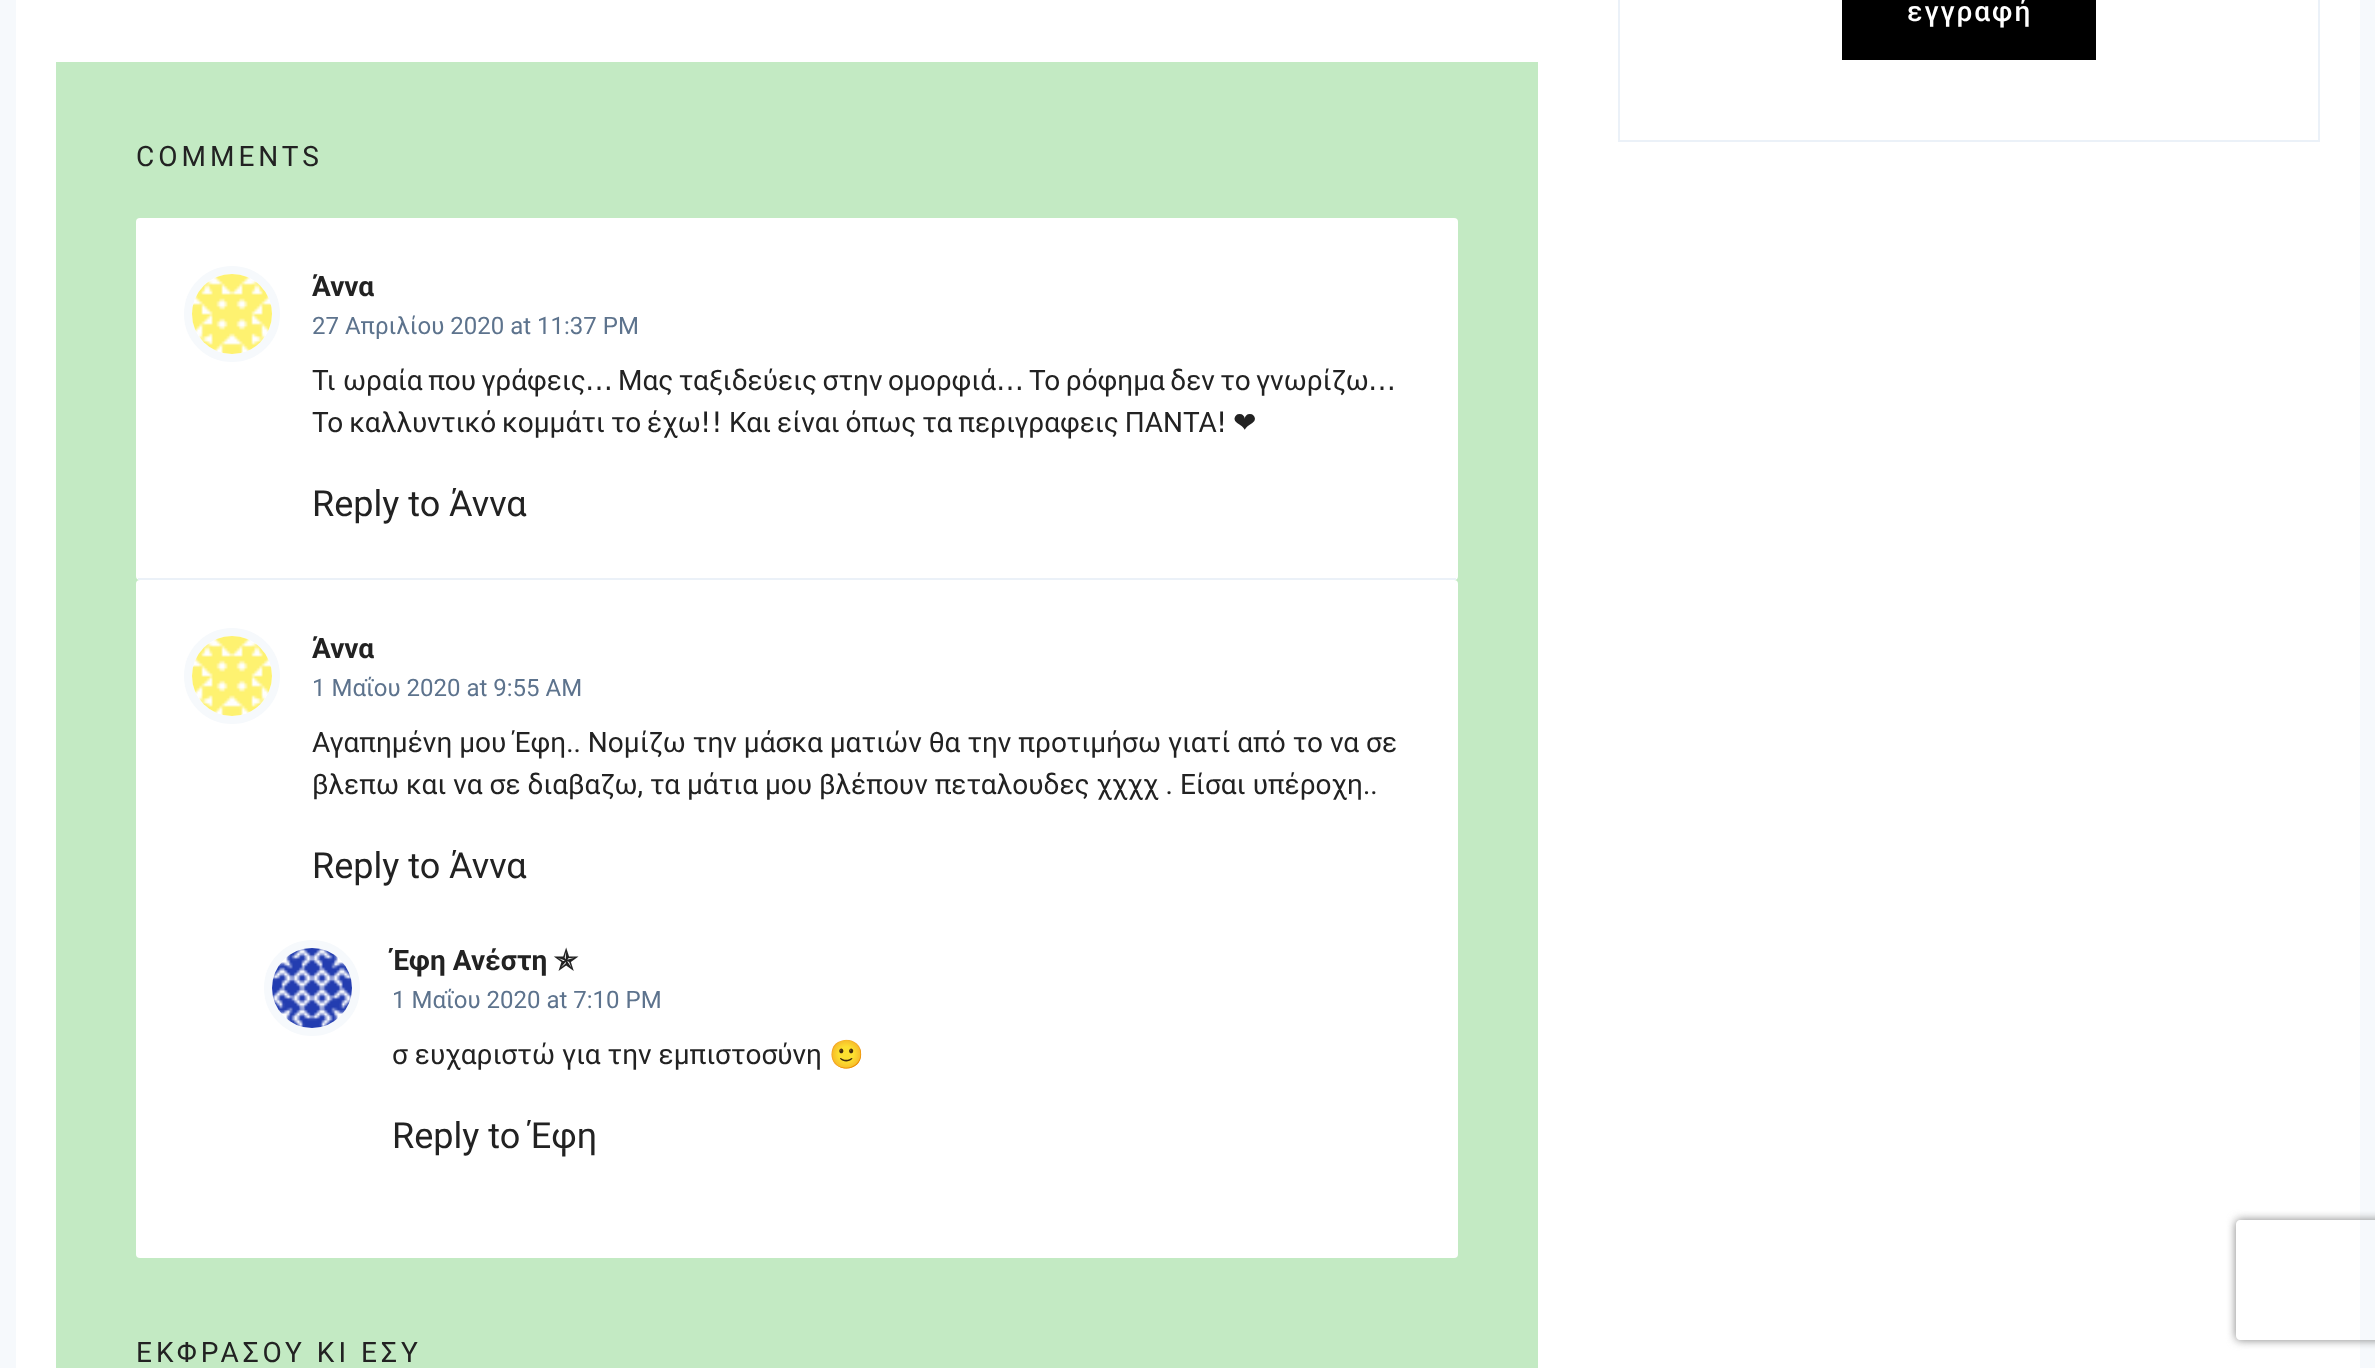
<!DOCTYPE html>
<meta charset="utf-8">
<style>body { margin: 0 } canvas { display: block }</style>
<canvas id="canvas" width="2375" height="1368"></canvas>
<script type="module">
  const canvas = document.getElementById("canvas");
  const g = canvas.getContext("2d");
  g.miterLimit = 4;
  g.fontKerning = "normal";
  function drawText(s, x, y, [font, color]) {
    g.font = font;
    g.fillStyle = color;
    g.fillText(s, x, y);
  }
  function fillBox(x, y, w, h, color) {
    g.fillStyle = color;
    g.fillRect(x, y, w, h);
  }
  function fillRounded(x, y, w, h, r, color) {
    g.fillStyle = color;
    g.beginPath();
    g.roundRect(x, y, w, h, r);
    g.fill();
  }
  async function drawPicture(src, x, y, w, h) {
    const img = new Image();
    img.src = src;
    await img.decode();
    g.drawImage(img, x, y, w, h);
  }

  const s1 = ["500 28px Roboto", "#FFFFFF"];
  const s2 = ["28px Roboto", "#222222"];
  const s3 = ["bold 28px Roboto", "#222222"];
  const s4 = ["24px Roboto", "#5D738D"];
  const s5 = ["28px DejaVu Sans", "#222222"];
  const s6 = ["36px Roboto", "#222222"];
  const s7 = ["bold 28px DejaVu Sans", "#222222"];
  const s8 = ["28px Noto Color Emoji", "#222222"];

  fillBox(0, 0, 2375, 1368, "#FFFFFF");
  g.strokeStyle = "#F6F9FC";
  g.lineWidth = 16;
  g.strokeRect(8, -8, 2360, 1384);
  fillBox(2318, 0, 2, 142, "#EBF1F8");
  fillBox(1618, 140, 702, 2, "#EBF1F8");
  fillBox(1618, 0, 2, 142, "#EBF1F8");
  fillBox(1842, 0, 254, 60, "#000000");
  g.letterSpacing = "2px";
  drawText("εγγραφή", 1907, 21, s1);
  fillBox(56, 62, 1482, 1306, "#C3EAC3");
  g.letterSpacing = "4px";
  drawText("COMMENTS", 136, 166, s2);
  fillRounded(136, 218, 1322, 362, 4, "#FFFFFF");
  fillBox(138, 578, 1318, 2, "#EBF1F8");
  g.beginPath();
  g.arc(232, 314, 44, 0, Math.PI * 2);
  g.lineWidth = 8;
  g.stroke();
  await drawPicture("pic1.png", 192, 274, 80, 80);
  g.letterSpacing = "0px";
  drawText("Άννα", 312, 296, s3);
  drawText("27 Απριλίου 2020 at 11:37 PM", 312, 334, s4);
  drawText("Τι", 312, 390, s2);
  g.wordSpacing = "-1.5px";
  drawText("ωραία που γράφεις", 343, 390, s2);
  g.wordSpacing = "0px";
  drawText("…", 585, 390, s5);
  g.wordSpacing = "-1.5px";
  drawText("Μας ταξιδεύεις στην ομορφιά", 618, 390, s2);
  g.wordSpacing = "0px";
  drawText("…", 996, 390, s5);
  g.wordSpacing = "-1.5px";
  drawText("Το ρόφημα δεν το γνωρίζω", 1029, 390, s2);
  g.wordSpacing = "0px";
  drawText("…", 1368, 390, s5);
  g.wordSpacing = "-1px";
  drawText("Το καλλυντικό κομμάτι το έχω", 312, 432, s2);
  g.wordSpacing = "0px";
  drawText("!!", 700, 432, s5);
  g.wordSpacing = "-1px";
  drawText("Και είναι όπως τα περιγραφεις ΠΑΝΤΑ", 729, 432, s2);
  g.wordSpacing = "0px";
  drawText("!", 1216, 432, s5);
  drawText("❤", 1233, 432, s5);
  drawText("Reply to Άννα", 312, 516, s6);
  fillRounded(136, 580, 1322, 678, 4, "#FFFFFF");
  g.beginPath();
  g.arc(232, 676, 44, 0, Math.PI * 2);
  g.stroke();
  await drawPicture("pic2.png", 192, 636, 80, 80);
  drawText("Άννα", 312, 658, s3);
  drawText("1 Μαΐου 2020 at 9:55 AM", 312, 696, s4);
  drawText("Αγαπημένη μου Έφη.. Νομίζω την μάσκα ματιών θα την προτιμήσω γιατί από το να σε", 312, 752, s2);
  drawText("βλεπω και να σε διαβαζω, τα μάτια μου βλέπουν πεταλουδες χχχχ . Είσαι υπέροχη..", 312, 794, s2);
  drawText("Reply to Άννα", 312, 878, s6);
  g.beginPath();
  g.arc(312, 988, 44, 0, Math.PI * 2);
  g.stroke();
  await drawPicture("pic3.png", 272, 948, 80, 80);
  drawText("Έφη Ανέστη", 392, 970, s3);
  drawText("✯", 554, 970, s7);
  drawText("1 Μαΐου 2020 at 7:10 PM", 392, 1008, s4);
  drawText("σ ευχαριστώ για την εμπιστοσύνη", 392, 1064, s2);
  drawText("🙂", 829, 1064, s8);
  drawText("Reply to Έφη", 392, 1148, s6);
  g.letterSpacing = "4px";
  drawText("ΕΚΦΡΑΣΟΥ ΚΙ ΕΣΥ", 136, 1362, s2);
  g.save();
  g.beginPath();
  g.moveTo(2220, 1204);
  g.lineTo(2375, 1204);
  g.lineTo(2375, 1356);
  g.lineTo(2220, 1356);
  g.closePath();
  g.moveTo(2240, 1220);
  g.lineTo(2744, 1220);
  g.bezierCurveTo(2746, 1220, 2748, 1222, 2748, 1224);
  g.lineTo(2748, 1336);
  g.bezierCurveTo(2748, 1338, 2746, 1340, 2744, 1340);
  g.lineTo(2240, 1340);
  g.bezierCurveTo(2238, 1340, 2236, 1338, 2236, 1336);
  g.lineTo(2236, 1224);
  g.bezierCurveTo(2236, 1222, 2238, 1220, 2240, 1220);
  g.closePath();
  g.clip("evenodd");
  g.fillStyle = "#808080";
  g.filter = "blur(5px)";
  g.beginPath();
  g.roundRect(2236, 1220, 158, 120, 4);
  g.fill();
  g.filter = "none";
  g.restore();
</script>
